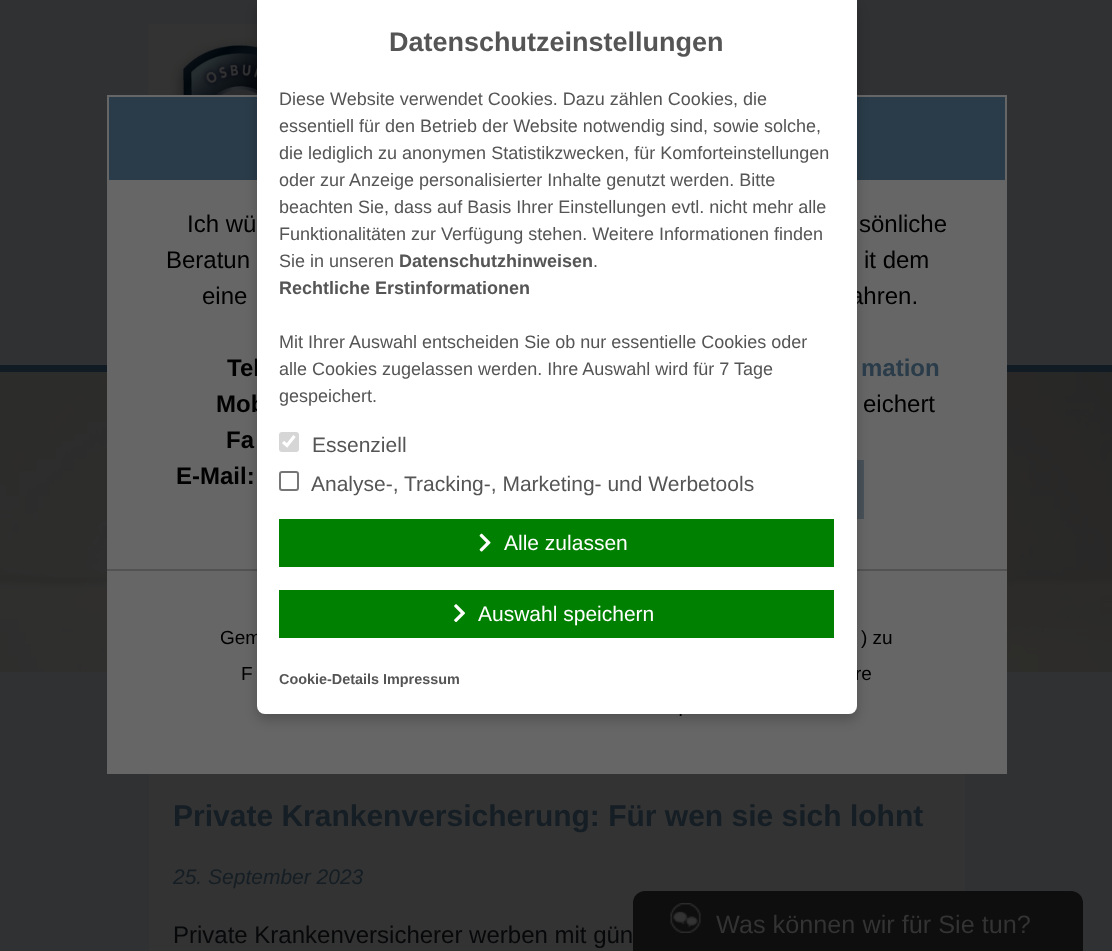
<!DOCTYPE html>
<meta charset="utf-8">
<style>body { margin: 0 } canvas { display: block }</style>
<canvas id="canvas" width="1112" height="951"></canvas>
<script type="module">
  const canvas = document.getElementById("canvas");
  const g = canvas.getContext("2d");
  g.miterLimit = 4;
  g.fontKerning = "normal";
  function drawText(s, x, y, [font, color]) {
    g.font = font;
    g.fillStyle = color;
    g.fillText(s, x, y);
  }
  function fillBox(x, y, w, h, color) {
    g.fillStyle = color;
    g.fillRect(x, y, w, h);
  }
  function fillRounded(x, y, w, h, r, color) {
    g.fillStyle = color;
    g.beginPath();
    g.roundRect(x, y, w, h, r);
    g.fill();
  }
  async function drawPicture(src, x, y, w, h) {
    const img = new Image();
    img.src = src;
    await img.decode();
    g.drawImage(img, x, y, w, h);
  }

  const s1 = ["bold 24px Liberation Sans", "#000000"];
  const s2 = ["24px Liberation Sans", "#000000"];
  const s3 = ["19px Liberation Sans", "#000000"];
  const s4 = ["bold 27px Liberation Sans", "#555555"];
  const s5 = ["18px Liberation Sans", "#555555"];
  const s6 = ["bold 18px Liberation Sans", "#555555"];
  const s7 = ["21px Liberation Sans", "#555555"];
  const s8 = ["21px Liberation Sans", "#FFFFFF"];
  const s9 = ["bold 14.4px Liberation Sans", "#555555"];
  const s10 = ["bold 24px Liberation Sans", "#2A3C49"];
  const s11 = ["bold 30px Liberation Sans", "#151E24"];
  const s12 = ["italic 21px Liberation Sans", "#151E24"];
  const s13 = ["24px Liberation Sans", "#07080A"];
  const s14 = ["25.25px Liberation Sans", "#333333"];

  fillBox(0, 0, 1112, 951, "#303132");
  await drawPicture("pic1.png", 148, 24, 109, 71);
  fillBox(0, 365, 1112, 7, "#101B24");
  await drawPicture("pic4.png", 0, 372, 1112, 300);
  fillBox(107, 182, 900, 592, "#666666");
  g.fillStyle = "#2A3C49";
  g.beginPath();
  g.rect(108, 96, 898, 85);
  g.fill();
  g.strokeStyle = "#666666";
  g.lineWidth = 2;
  g.stroke();
  fillBox(857, 460, 7, 59, "#485158");
  fillBox(107, 569, 900, 2, "#525252");
  g.fillStyle = "rgba(0, 0, 0, 0.2)";
  g.filter = "blur(6px)";
  g.beginPath();
  g.roundRect(257, 6, 600, 714, 8);
  g.fill();
  g.filter = "none";
  drawText("Tel", 227, 376, s1);
  drawText("Mob", 216, 412, s1);
  drawText("ahren.", 850, 304, s2);
  drawText("Gem", 220, 644, s3);
  drawText("re", 855, 680, s3);
  drawText(".", 678, 716, s3);
  g.fillStyle = "#FFFFFF";
  g.beginPath();
  g.roundRect(257, 0, 600, 714, [0, 0, 8, 8]);
  g.fill();
  drawText("Datenschutzeinstellungen", 389, 51, s4);
  drawText("Diese Website verwendet Cookies. Dazu zählen Cookies, die", 279, 105, s5);
  drawText("essentiell für den Betrieb der Website notwendig sind, sowie solche,", 279, 132, s5);
  drawText("die lediglich zu anonymen Statistikzwecken, für Komforteinstellungen", 279, 159, s5);
  drawText("oder zur Anzeige personalisierter Inhalte genutzt werden. Bitte", 279, 186, s5);
  drawText("beachten Sie, dass auf Basis Ihrer Einstellungen evtl. nicht mehr alle", 279, 213, s5);
  drawText("Funktionalitäten zur Verfügung stehen. Weitere Informationen finden", 279, 240, s5);
  drawText("Sie in unseren", 279, 267, s5);
  drawText("Datenschutzhinweisen", 399, 267, s6);
  drawText(".", 593, 267, s5);
  drawText("Rechtliche Erstinformationen", 279, 294, s6);
  drawText("Mit Ihrer Auswahl entscheiden Sie ob nur essentielle Cookies oder", 279, 348, s5);
  drawText("alle Cookies zugelassen werden. Ihre Auswahl wird für 7 Tage", 279, 375, s5);
  drawText("gespeichert.", 279, 402, s5);
  fillRounded(279, 432, 20, 20, 3, "#D6D6D6");
  g.beginPath();
  g.moveTo(283, 442);
  g.lineTo(287, 445.5);
  g.lineTo(294.5, 436);
  g.strokeStyle = "#FFFFFF";
  g.lineWidth = 3.1;
  g.stroke();
  drawText("Essenziell", 312, 452, s7);
  g.beginPath();
  g.roundRect(280, 472, 18, 18, 2);
  g.strokeStyle = "#767676";
  g.lineWidth = 2;
  g.stroke();
  drawText("Analyse-, Tracking-, Marketing- und Werbetools", 311, 491, s7);
  fillBox(279, 519, 555, 48, "#008000");
  await drawPicture("pic2.png", 479, 533, 12, 19);
  drawText("Alle zulassen", 504, 550, s8);
  fillBox(279, 590, 555, 48, "#008000");
  await drawPicture("pic3.png", 454, 604, 11, 18);
  drawText("Auswahl speichern", 478, 621, s8);
  drawText("Cookie-Details Impressum", 279, 684, s9);
  drawText("Ich wü", 187, 232, s2);
  drawText("Beratun", 166, 268, s2);
  drawText("eine", 202, 304, s2);
  drawText("Fa", 226, 448, s1);
  drawText("E-Mail:", 176, 484, s1);
  drawText("sönliche", 859, 232, s2);
  drawText("it dem", 864, 268, s2);
  drawText("mation", 861, 376, s10);
  drawText("eichert", 863, 412, s2);
  drawText(") zu", 861, 644, s3);
  drawText("F", 241, 680, s3);
  fillBox(149, 774, 816, 177, "#333333");
  drawText("Private Krankenversicherung: Für wen sie sich lohnt", 173, 826, s11);
  drawText("25. September 2023", 173, 884, s12);
  drawText("Private Krankenversicherer werben mit gün", 173, 943, s13);
  g.fillStyle = "#0E0E0E";
  g.beginPath();
  g.roundRect(633, 891, 450, 60, [12, 12, 0, 0]);
  g.fill();
  await drawPicture("pic5.png", 670, 903, 31, 30);
  drawText("Was können wir für Sie tun?", 716, 933, s14);
</script>
